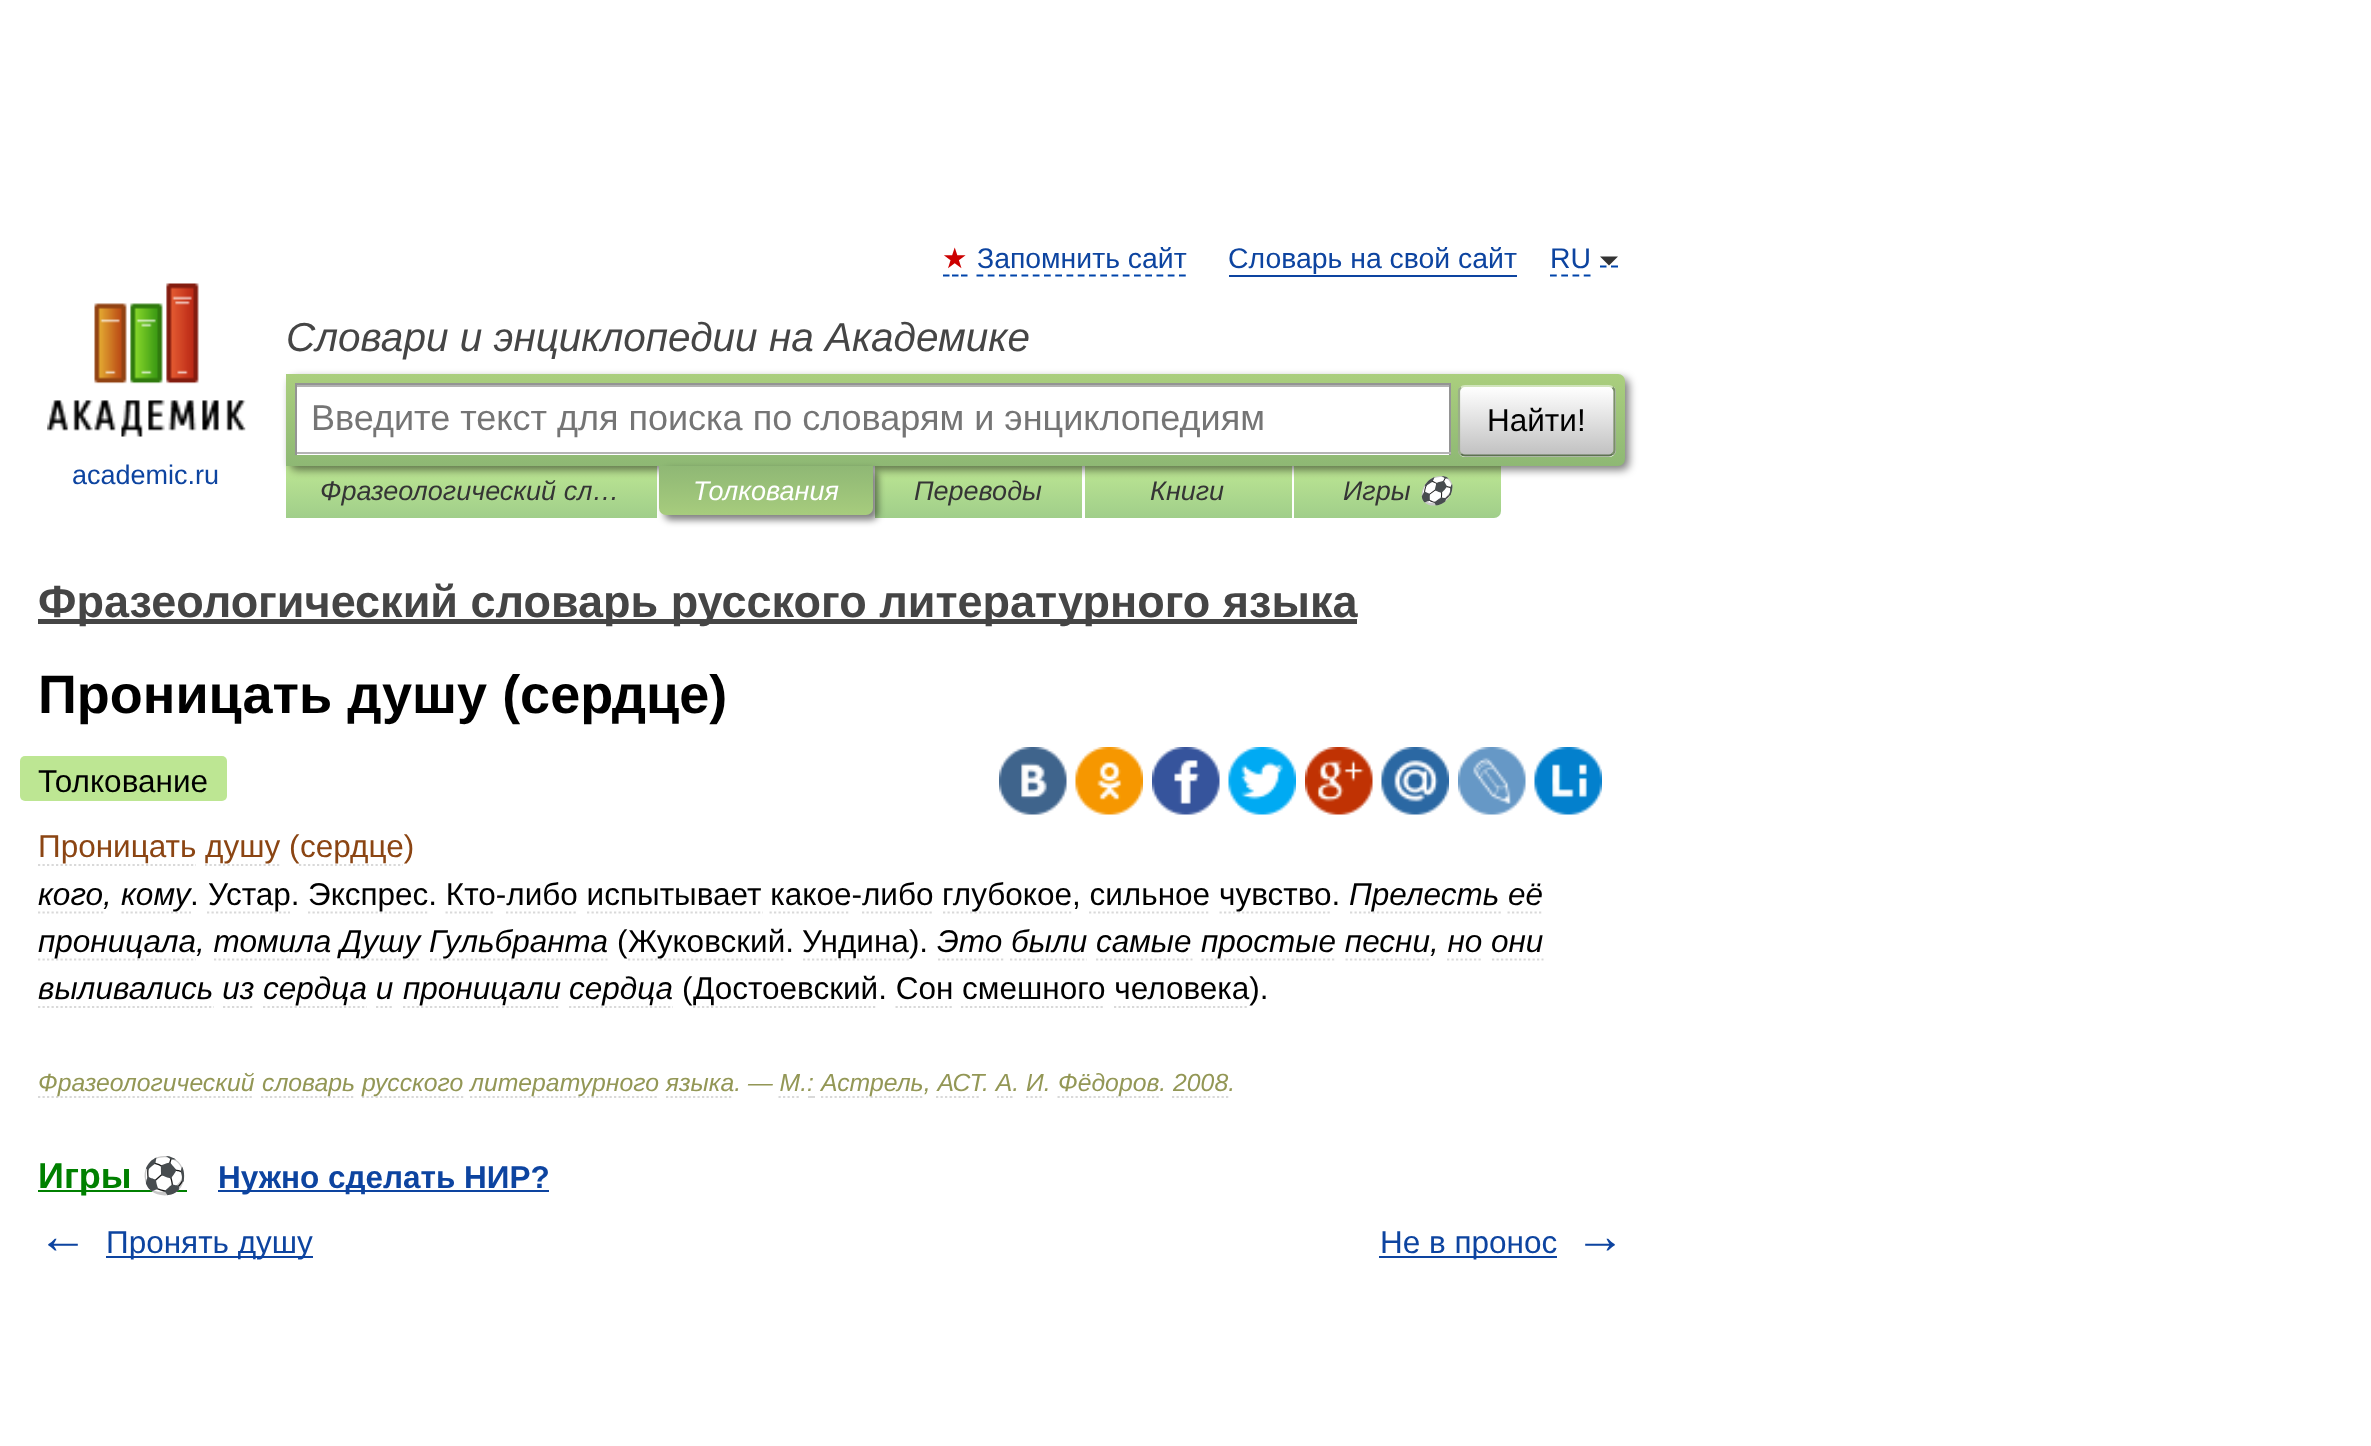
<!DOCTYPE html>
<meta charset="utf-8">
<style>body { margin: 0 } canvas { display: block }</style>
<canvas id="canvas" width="2371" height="1446"></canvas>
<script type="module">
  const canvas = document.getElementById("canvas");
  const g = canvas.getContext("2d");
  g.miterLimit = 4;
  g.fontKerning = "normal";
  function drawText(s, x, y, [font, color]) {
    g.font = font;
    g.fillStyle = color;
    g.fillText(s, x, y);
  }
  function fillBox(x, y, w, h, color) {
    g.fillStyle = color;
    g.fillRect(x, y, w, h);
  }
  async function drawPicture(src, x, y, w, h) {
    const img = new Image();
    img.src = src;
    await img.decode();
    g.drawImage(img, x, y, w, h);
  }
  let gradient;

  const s1 = ["28.4px DejaVu Sans", "#CC0000"];
  const s2 = ["28.4px Liberation Sans", "#0D44A0"];
  const s3 = ["italic 40.5px Liberation Sans", "#454545"];
  const s4 = ["36px Liberation Sans", "#757575"];
  const s5 = ["31.5px Liberation Sans", "#000000"];
  const s6 = ["27px Liberation Sans", "#0D44A0"];
  const s7 = ["italic 27px Liberation Sans", "#353535"];
  const s8 = ["italic 27px Liberation Sans", "#FFFFFF"];
  const s9 = ["italic 27px Noto Color Emoji", "#353535"];
  const s10 = ["bold 45px Liberation Sans", "#454545"];
  const s11 = ["bold 54px Liberation Sans", "#000000"];
  const s12 = ["31.5px Liberation Sans", "#8B4513"];
  const s13 = ["italic 31.5px Liberation Sans", "#000000"];
  const s14 = ["italic 24.75px Liberation Sans", "#939756"];
  const s15 = ["bold 36px Liberation Sans", "#008000"];
  const s16 = ["bold 36px Noto Color Emoji", "#008000"];
  const s17 = ["bold 31.5px Liberation Sans", "#0D44A0"];
  const s18 = ["bold 50px Liberation Sans", "#0D44A0"];
  const s19 = ["31.5px Liberation Sans", "#0D44A0"];

  fillBox(0, 0, 2371, 1446, "#FFFFFF");
  drawText("★", 942, 268, s1);
  g.beginPath();
  g.moveTo(943, 275.5);
  g.lineTo(949.5, 275.5);
  g.moveTo(952, 275.5);
  g.lineTo(958.5, 275.5);
  g.moveTo(961, 275.5);
  g.lineTo(967.5, 275.5);
  g.strokeStyle = "#0044AA";
  g.lineWidth = 2.2;
  g.stroke();
  drawText("Запомнить сайт", 977, 268, s2);
  g.beginPath();
  g.moveTo(976.5, 275.5);
  g.lineTo(1186, 275.5);
  g.setLineDash([6.75, 4.5]);
  g.stroke();
  drawText("Словарь на свой сайт", 1228, 268, s2);
  fillBox(1229, 275, 288, 2, "#0D44A0");
  g.beginPath();
  g.moveTo(1550, 275.5);
  g.lineTo(1591, 275.5);
  g.stroke();
  g.beginPath();
  g.moveTo(1600, 266.5);
  g.lineTo(1606.5, 266.5);
  g.moveTo(1611, 266.5);
  g.lineTo(1618, 266.5);
  g.setLineDash([]);
  g.stroke();
  drawText("RU", 1550, 268, s2);
  g.fillStyle = "#333333";
  g.beginPath();
  g.moveTo(1600, 256.5);
  g.lineTo(1618, 256.5);
  g.lineTo(1609, 265.5);
  g.closePath();
  g.fill();
  drawText("Словари и энциклопедии на Академике", 286, 351, s3);
  gradient = g.createLinearGradient(471, 466, 471, 518);
  gradient.addColorStop(0, "#BDE693");
  gradient.addColorStop(1, "#A0CE8A");
  g.fillStyle = gradient;
  g.fillRect(286, 466, 371, 52);
  gradient = g.createLinearGradient(979, 466, 979, 518);
  gradient.addColorStop(0, "#BDE693");
  gradient.addColorStop(1, "#A0CE8A");
  g.fillStyle = gradient;
  g.fillRect(875, 466, 207, 52);
  gradient = g.createLinearGradient(1188, 466, 1188, 518);
  gradient.addColorStop(0, "#BDE693");
  gradient.addColorStop(1, "#A0CE8A");
  g.fillStyle = gradient;
  g.fillRect(1085, 466, 207, 52);
  gradient = g.createLinearGradient(1397, 466, 1397, 518);
  gradient.addColorStop(0, "#BDE693");
  gradient.addColorStop(1, "#A0CE8A");
  g.fillStyle = gradient;
  g.beginPath();
  g.roundRect(1294, 466, 207, 52, [0, 0, 7, 0]);
  g.fill();
  g.fillStyle = "rgba(0, 0, 0, 0.5)";
  g.filter = "blur(4.5px)";
  g.beginPath();
  g.roundRect(290, 378, 1339, 92, 7);
  g.fill();
  g.filter = "none";
  gradient = g.createLinearGradient(955, 373, 955, 466);
  gradient.addColorStop(0, "#ABCF7E");
  gradient.addColorStop(1, "#8EB874");
  g.fillStyle = gradient;
  g.beginPath();
  g.roundRect(286, 374, 1339, 92, [0, 7, 7, 0]);
  g.fill();
  fillBox(297, 387, 1152, 68, "#FFFFFF");
  fillBox(297, 385, 1152, 2, "#B3B3B3");
  fillBox(295, 383, 1156, 2, "#949494");
  fillBox(1449, 383, 2, 72, "#949494");
  fillBox(295, 452, 1156, 2, "#B4B4B4");
  fillBox(295, 383, 2, 72, "#949494");
  drawText("Введите текст для поиска по словарям и энциклопедиям", 311, 430, s4);
  g.save();
  g.beginPath();
  g.roundRect(1458, 385, 158, 72, 7);
  g.clip();
  gradient = g.createLinearGradient(1537, 387, 1537, 455);
  gradient.addColorStop(0, "#FFFFFF");
  gradient.addColorStop(1, "#C1C1C1");
  g.fillStyle = gradient;
  g.fillRect(1458, 387, 158, 68);
  gradient = g.createLinearGradient(1537, 455, 1537, 522);
  gradient.addColorStop(0, "#FFFFFF");
  gradient.addColorStop(1, "#C1C1C1");
  g.fillStyle = gradient;
  g.fillRect(1458, 455, 158, 2);
  g.restore();
  g.beginPath();
  g.moveTo(1461, 387.5);
  g.bezierCurveTo(1462, 386.5, 1463.5, 386, 1465, 386);
  g.lineTo(1609, 386);
  g.bezierCurveTo(1610, 386, 1611.5, 386.5, 1612.5, 387.5);
  g.strokeStyle = "#D1E4BC";
  g.stroke();
  g.beginPath();
  g.moveTo(1612.5, 387.5);
  g.bezierCurveTo(1614, 388.5, 1614.5, 390, 1614.5, 391.5);
  g.lineTo(1614.5, 450);
  g.bezierCurveTo(1614.5, 451.5, 1614, 453, 1612.5, 454);
  g.strokeStyle = "#7A8E69";
  g.stroke();
  g.beginPath();
  g.moveTo(1612.5, 454);
  g.bezierCurveTo(1611.5, 455, 1610, 455.5, 1609, 455.5);
  g.lineTo(1465, 455.5);
  g.bezierCurveTo(1463.5, 455.5, 1462, 455, 1461, 454);
  g.strokeStyle = "#5D7250";
  g.stroke();
  g.beginPath();
  g.moveTo(1461, 454);
  g.bezierCurveTo(1459.5, 453, 1459, 451.5, 1459, 450);
  g.lineTo(1459, 391.5);
  g.bezierCurveTo(1459, 390, 1459.5, 388.5, 1461, 387.5);
  g.strokeStyle = "#9AAE89";
  g.stroke();
  drawText("Найти!", 1487, 431, s5);
  await drawPicture("pic1.png", 47, 283, 199, 154);
  drawText("academic.ru", 72, 484, s6);
  drawText("Фразеологический сл…", 320, 500, s7);
  g.fillStyle = "rgba(0, 0, 0, 0.5)";
  g.filter = "blur(3.5px)";
  g.beginPath();
  g.roundRect(664, 470, 214, 50, 7);
  g.fill();
  g.filter = "none";
  gradient = g.createLinearGradient(766, 466, 766, 515);
  gradient.addColorStop(0, "#8FB875");
  gradient.addColorStop(1, "#A7CC7D");
  g.fillStyle = gradient;
  g.beginPath();
  g.roundRect(659, 466, 214, 49, [0, 0, 7, 7]);
  g.fill();
  drawText("Толкования", 693, 500, s8);
  drawText("Переводы", 914, 500, s7);
  drawText("Книги", 1150, 500, s7);
  drawText("Игры", 1343, 500, s7);
  drawText("⚽", 1418, 500, s9);
  fillBox(38, 619, 1319, 5, "#454545");
  drawText("Фразеологический словарь русского литературного языка", 38, 617, s10);
  drawText("Проницать душу (сердце)", 38, 713, s11);
  g.fillStyle = "#BDE693";
  g.beginPath();
  g.roundRect(38, 756, 189, 45, [0, 5, 5, 0]);
  g.fill();
  drawText("Толкование", 38, 792, s5);
  g.fillStyle = "#BDE693";
  g.beginPath();
  g.roundRect(20, 756, 18, 45, [5, 0, 0, 5]);
  g.fill();
  await drawPicture("pic2.png", 999, 747, 68, 68);
  await drawPicture("pic3.png", 1075, 747, 68, 68);
  await drawPicture("pic4.png", 1152, 747, 68, 68);
  await drawPicture("pic5.png", 1228, 747, 68, 68);
  await drawPicture("pic6.png", 1305, 747, 68, 68);
  await drawPicture("pic7.png", 1381, 747, 68, 68);
  await drawPicture("pic8.png", 1458, 747, 68, 68);
  await drawPicture("pic9.png", 1534, 747, 68, 68);
  g.beginPath();
  g.moveTo(38, 865);
  g.lineTo(196, 865);
  g.strokeStyle = "#D9D9D9";
  g.setLineDash([2.25, 2.25]);
  g.stroke();
  drawText("Проницать", 38, 857, s12);
  g.beginPath();
  g.moveTo(205, 865);
  g.lineTo(281, 865);
  g.stroke();
  drawText("душу (", 205, 857, s12);
  g.beginPath();
  g.moveTo(299, 865);
  g.lineTo(403, 865);
  g.stroke();
  drawText("сердце)", 300, 857, s12);
  drawText("кого,", 38, 905, s13);
  g.beginPath();
  g.moveTo(38, 912.5);
  g.lineTo(103.5, 912.5);
  g.stroke();
  g.beginPath();
  g.moveTo(121.5, 912.5);
  g.lineTo(191, 912.5);
  g.stroke();
  drawText("кому", 121, 905, s13);
  drawText(".", 190, 905, s5);
  g.beginPath();
  g.moveTo(207, 912.5);
  g.lineTo(290, 912.5);
  g.stroke();
  drawText("Устар.", 208, 905, s5);
  g.beginPath();
  g.moveTo(308, 912.5);
  g.lineTo(427.5, 912.5);
  g.stroke();
  drawText("Экспрес. Кто-либо испытывает какое-либо", 308, 905, s5);
  g.beginPath();
  g.moveTo(943, 912.5);
  g.lineTo(1073, 912.5);
  g.stroke();
  drawText("глубокое, сильное", 942, 905, s5);
  g.beginPath();
  g.moveTo(1219.5, 912.5);
  g.lineTo(1332, 912.5);
  g.stroke();
  drawText("чувство.", 1219, 905, s5);
  g.beginPath();
  g.moveTo(1350, 912.5);
  g.lineTo(1501, 912.5);
  g.stroke();
  drawText("Прелесть её", 1349, 905, s13);
  g.beginPath();
  g.moveTo(1507.5, 912.5);
  g.lineTo(1543.5, 912.5);
  g.stroke();
  g.beginPath();
  g.moveTo(445.5, 912.5);
  g.lineTo(495, 912.5);
  g.stroke();
  g.beginPath();
  g.moveTo(506, 912.5);
  g.lineTo(578, 912.5);
  g.stroke();
  g.beginPath();
  g.moveTo(587, 912.5);
  g.lineTo(763, 912.5);
  g.stroke();
  g.beginPath();
  g.moveTo(769.5, 912.5);
  g.lineTo(850.5, 912.5);
  g.stroke();
  g.beginPath();
  g.moveTo(862, 912.5);
  g.lineTo(934, 912.5);
  g.stroke();
  g.beginPath();
  g.moveTo(1089, 912.5);
  g.lineTo(1210.5, 912.5);
  g.stroke();
  g.beginPath();
  g.moveTo(38, 959.5);
  g.lineTo(196, 959.5);
  g.stroke();
  drawText("проницала, томила", 38, 952, s13);
  g.beginPath();
  g.moveTo(214, 959.5);
  g.lineTo(331, 959.5);
  g.stroke();
  g.beginPath();
  g.moveTo(340, 959.5);
  g.lineTo(421, 959.5);
  g.stroke();
  drawText("Душу", 340, 952, s13);
  g.beginPath();
  g.moveTo(430, 959.5);
  g.lineTo(607.5, 959.5);
  g.stroke();
  drawText("Гульбранта", 429, 952, s13);
  drawText("(", 617, 952, s5);
  g.beginPath();
  g.moveTo(628, 959.5);
  g.lineTo(785, 959.5);
  g.stroke();
  drawText("Жуковский.", 628, 952, s5);
  g.beginPath();
  g.moveTo(803, 959.5);
  g.lineTo(909, 959.5);
  g.stroke();
  drawText("Ундина).", 802, 952, s5);
  drawText("Это были самые", 937, 952, s13);
  g.beginPath();
  g.moveTo(938, 959.5);
  g.lineTo(1003.5, 959.5);
  g.stroke();
  g.beginPath();
  g.moveTo(1010, 959.5);
  g.lineTo(1087, 959.5);
  g.stroke();
  g.beginPath();
  g.moveTo(1201.5, 959.5);
  g.lineTo(1336.5, 959.5);
  g.stroke();
  drawText("простые песни, но они", 1201, 952, s13);
  g.beginPath();
  g.moveTo(1096, 959.5);
  g.lineTo(1192.5, 959.5);
  g.stroke();
  g.beginPath();
  g.moveTo(1345.5, 959.5);
  g.lineTo(1429, 959.5);
  g.stroke();
  g.beginPath();
  g.moveTo(1447, 959.5);
  g.lineTo(1483, 959.5);
  g.stroke();
  g.beginPath();
  g.moveTo(1492, 959.5);
  g.lineTo(1543.5, 959.5);
  g.stroke();
  drawText("выливались из", 38, 999, s13);
  g.beginPath();
  g.moveTo(38, 1007);
  g.lineTo(214, 1007);
  g.stroke();
  g.beginPath();
  g.moveTo(223, 1007);
  g.lineTo(254, 1007);
  g.stroke();
  g.beginPath();
  g.moveTo(263, 1007);
  g.lineTo(367, 1007);
  g.stroke();
  drawText("сердца и", 263, 999, s13);
  g.beginPath();
  g.moveTo(376, 1007);
  g.lineTo(394, 1007);
  g.stroke();
  g.beginPath();
  g.moveTo(403, 1007);
  g.lineTo(560, 1007);
  g.stroke();
  drawText("проницали", 403, 999, s13);
  g.beginPath();
  g.moveTo(569, 1007);
  g.lineTo(673, 1007);
  g.stroke();
  drawText("сердца", 569, 999, s13);
  drawText("(", 682, 999, s5);
  g.beginPath();
  g.moveTo(693, 1007);
  g.lineTo(877.5, 1007);
  g.stroke();
  drawText("Достоевский. Сон смешного человека).", 693, 999, s5);
  g.beginPath();
  g.moveTo(895.5, 1007);
  g.lineTo(954, 1007);
  g.stroke();
  g.beginPath();
  g.moveTo(961, 1007);
  g.lineTo(1105, 1007);
  g.stroke();
  g.beginPath();
  g.moveTo(1114, 1007);
  g.lineTo(1249, 1007);
  g.stroke();
  g.beginPath();
  g.moveTo(38, 1097);
  g.lineTo(254, 1097);
  g.stroke();
  drawText("Фразеологический", 38, 1091, s14);
  g.beginPath();
  g.moveTo(261, 1097);
  g.lineTo(355.5, 1097);
  g.stroke();
  drawText("словарь", 262, 1091, s14);
  g.beginPath();
  g.moveTo(362, 1097);
  g.lineTo(463.5, 1097);
  g.stroke();
  drawText("русского", 362, 1091, s14);
  g.beginPath();
  g.moveTo(470, 1097);
  g.lineTo(659, 1097);
  g.stroke();
  drawText("литературного языка. — М.:", 470, 1091, s14);
  g.beginPath();
  g.moveTo(666, 1097);
  g.lineTo(733.5, 1097);
  g.stroke();
  g.beginPath();
  g.moveTo(778.5, 1097);
  g.lineTo(801, 1097);
  g.stroke();
  fillBox(808, 1096, 7, 2, "#D9D9D9");
  g.beginPath();
  g.moveTo(821, 1097);
  g.lineTo(922.5, 1097);
  g.stroke();
  drawText("Астрель, АСТ", 821, 1091, s14);
  g.beginPath();
  g.moveTo(936, 1097);
  g.lineTo(981, 1097);
  g.stroke();
  drawText(". А. И.", 982, 1091, s14);
  g.beginPath();
  g.moveTo(997, 1097);
  g.lineTo(999, 1097);
  g.moveTo(1001, 1097);
  g.lineTo(1003.5, 1097);
  g.moveTo(1006, 1097);
  g.lineTo(1008, 1097);
  g.moveTo(1010, 1097);
  g.lineTo(1012.5, 1097);
  g.setLineDash([]);
  g.stroke();
  g.beginPath();
  g.moveTo(1026, 1097);
  g.lineTo(1044, 1097);
  g.setLineDash([2.25, 2.25]);
  g.stroke();
  g.beginPath();
  g.moveTo(1057.5, 1097);
  g.lineTo(1159, 1097);
  g.stroke();
  drawText("Фёдоров. 2008.", 1058, 1091, s14);
  g.beginPath();
  g.moveTo(1172, 1097);
  g.lineTo(1228.5, 1097);
  g.stroke();
  fillBox(38, 1190, 149, 2, "#008000");
  drawText("Игры", 38, 1188, s15);
  drawText("⚽", 142, 1188, s16);
  fillBox(218, 1190, 331, 2, "#0D44A0");
  drawText("Нужно сделать НИР?", 218, 1188, s17);
  drawText("←", 38, 1253, s18);
  fillBox(106, 1256, 207, 2, "#0D44A0");
  drawText("Пронять душу", 106, 1253, s19);
  fillBox(1379, 1256, 178, 2, "#0D44A0");
  drawText("Не в пронос", 1380, 1253, s19);
  drawText("→", 1575, 1253, s18);
</script>
